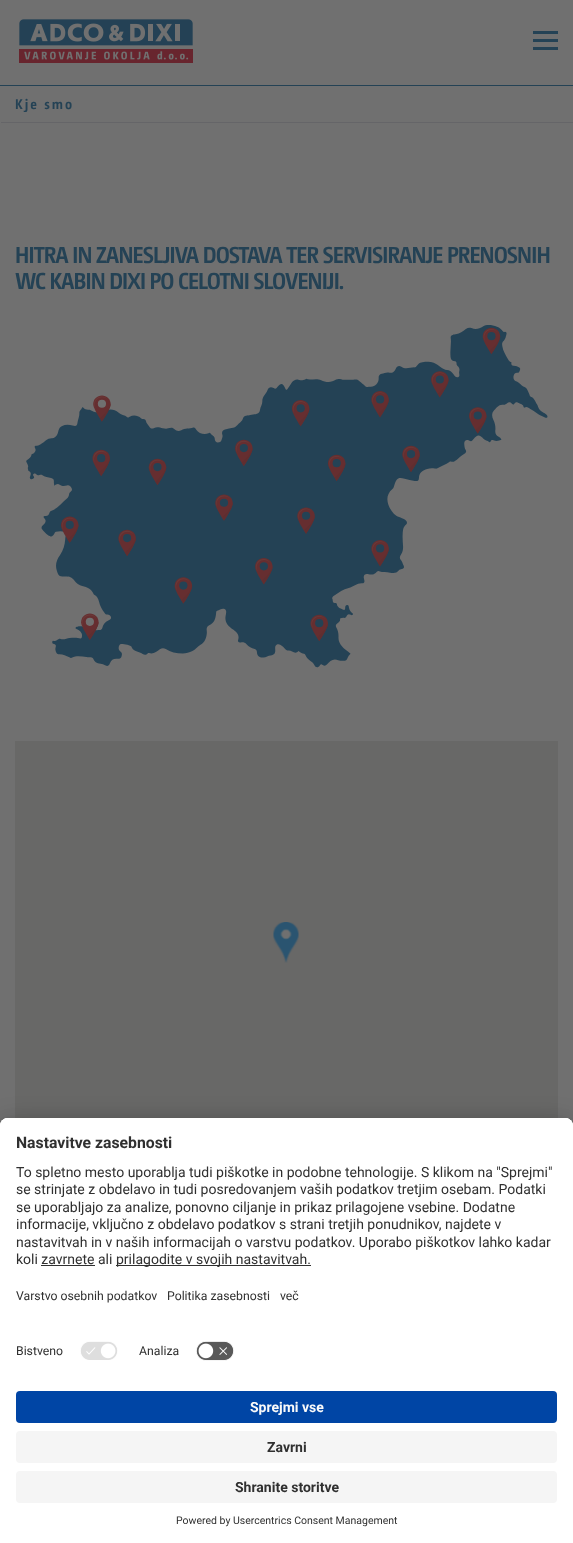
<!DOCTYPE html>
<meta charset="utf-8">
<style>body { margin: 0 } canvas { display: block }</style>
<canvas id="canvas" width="573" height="1543"></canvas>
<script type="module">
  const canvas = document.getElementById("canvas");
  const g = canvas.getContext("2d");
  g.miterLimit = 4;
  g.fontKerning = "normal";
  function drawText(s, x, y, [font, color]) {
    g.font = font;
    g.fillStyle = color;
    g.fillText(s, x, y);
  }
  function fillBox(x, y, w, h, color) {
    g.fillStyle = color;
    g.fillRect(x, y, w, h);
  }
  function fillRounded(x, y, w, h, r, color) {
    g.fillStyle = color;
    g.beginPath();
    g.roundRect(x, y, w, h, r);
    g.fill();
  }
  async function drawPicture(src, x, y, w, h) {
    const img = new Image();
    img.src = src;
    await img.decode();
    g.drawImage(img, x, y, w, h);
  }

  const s1 = ["bold 14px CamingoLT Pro", "#244255"];
  const s2 = ["bold 23px CamingoLT Pro", "#244255"];
  const s3 = ["bold 15.75px Roboto", "#303030"];
  const s4 = ["14px Roboto", "#303030"];
  const s5 = ["12.25px Roboto", "#303030"];
  const s6 = ["bold 14px Roboto", "#FAFAFA"];
  const s7 = ["bold 14px Roboto", "#303030"];
  const s8 = ["10.5px Roboto", "#303030"];

  fillBox(0, 0, 573, 1543, "#707070");
  fillBox(0, 85, 573, 1, "#244255");
  await drawPicture("pic1.png", 19, 19, 174, 44);
  fillBox(533, 31, 25, 3, "#244255");
  fillBox(533, 39, 25, 3, "#244255");
  fillBox(533, 47, 25, 3, "#244255");
  g.letterSpacing = "2px";
  drawText("Kje smo", 15, 109, s1);
  fillBox(1, 122, 572, 1, "#656568");
  g.letterSpacing = "-0.92px";
  drawText("HITRA IN ZANESLJIVA DOSTAVA TER SERVISIRANJE PRENOSNIH", 15, 263, s2);
  drawText("WC KABIN DIXI PO CELOTNI SLOVENIJI.", 15, 289, s2);
  await drawPicture("pic2.png", 26, 325, 522, 343);
  fillBox(15, 741, 543, 377, "#686867");
  await drawPicture("pic3.png", 273, 922, 26, 41);
  g.fillStyle = "rgba(0, 0, 0, 0.3)";
  g.filter = "blur(14px)";
  g.beginPath();
  g.roundRect(0, 1138, 573, 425, 8);
  g.fill();
  g.filter = "none";
  g.fillStyle = "rgba(0, 0, 0, 0.22)";
  g.filter = "blur(13px)";
  g.beginPath();
  g.roundRect(0, 1123, 573, 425, 8);
  g.fill();
  g.filter = "none";
  g.fillStyle = "#FFFFFF";
  g.beginPath();
  g.roundRect(0, 1118, 573, 425, [8, 8, 0, 0]);
  g.fill();
  g.beginPath();
  g.roundRect(0, 1118, 573, 261, [8, 8, 0, 0]);
  g.fill();
  g.beginPath();
  g.roundRect(0, 1118, 573, 217, [8, 8, 0, 0]);
  g.fill();
  g.letterSpacing = "0px";
  drawText("Nastavitve zasebnosti", 16, 1148, s3);
  drawText("To spletno mesto uporablja tudi piškotke in podobne tehnologije. S klikom na \"Sprejmi\"", 16, 1177, s4);
  drawText("se strinjate z obdelavo in tudi posredovanjem vaših podatkov tretjim osebam. Podatki", 16, 1194, s4);
  drawText("se uporabljajo za analize, ponovno ciljanje in prikaz prilagojene vsebine. Dodatne", 16, 1212, s4);
  drawText("informacije, vključno z obdelavo podatkov s strani tretjih ponudnikov, najdete v", 16, 1229, s4);
  drawText("nastavitvah in v naših informacijah o varstvu podatkov. Uporabo piškotkov lahko kadar", 16, 1247, s4);
  drawText("koli zavrnete ali", 16, 1264, s4);
  fillBox(116, 1265, 195, 1, "#303030");
  drawText("prilagodite v svojih nastavitvah.", 116, 1264, s4);
  fillBox(41, 1265, 54, 1, "#303030");
  drawText("Varstvo osebnih podatkov", 16, 1300, s5);
  drawText("Politika zasebnosti", 167, 1300, s5);
  drawText("več", 280, 1300, s5);
  drawText("Bistveno", 16, 1355, s5);
  await drawPicture("pic4.png", 80, 1341, 38, 19);
  drawText("Analiza", 139, 1355, s5);
  await drawPicture("pic5.png", 196, 1341, 38, 20);
  fillRounded(16, 1391, 541, 32, 4, "#0045A5");
  drawText("Sprejmi vse", 250, 1412, s6);
  fillRounded(16, 1431, 541, 32, 4, "#F5F5F5");
  drawText("Zavrni", 267, 1452, s7);
  fillRounded(16, 1471, 541, 32, 4, "#F5F5F5");
  drawText("Shranite storitve", 235, 1492, s7);
  drawText("Powered by Usercentrics Consent Management", 176, 1524, s8);
</script>
